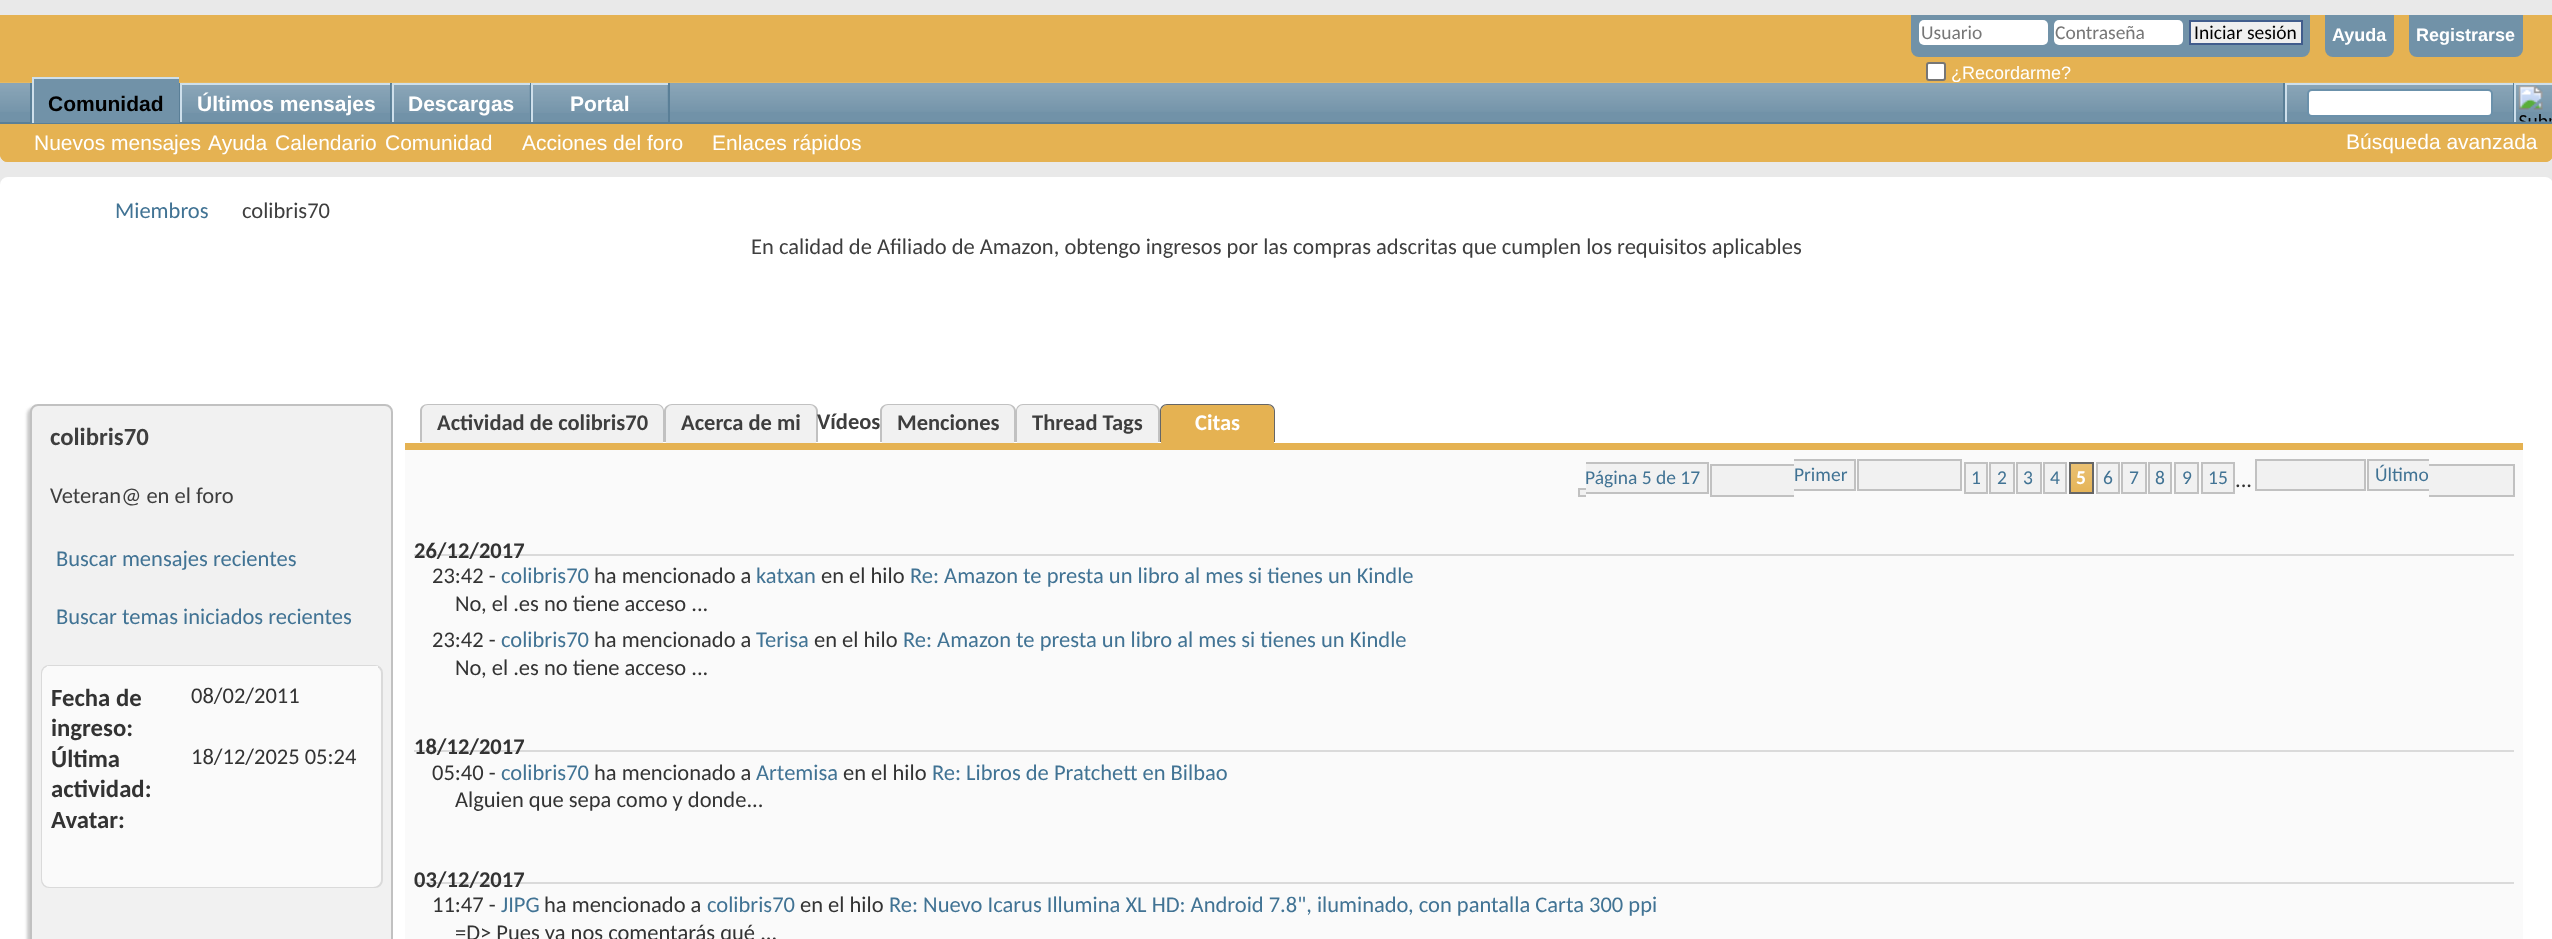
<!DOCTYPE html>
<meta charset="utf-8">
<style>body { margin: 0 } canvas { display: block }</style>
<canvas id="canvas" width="2552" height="939"></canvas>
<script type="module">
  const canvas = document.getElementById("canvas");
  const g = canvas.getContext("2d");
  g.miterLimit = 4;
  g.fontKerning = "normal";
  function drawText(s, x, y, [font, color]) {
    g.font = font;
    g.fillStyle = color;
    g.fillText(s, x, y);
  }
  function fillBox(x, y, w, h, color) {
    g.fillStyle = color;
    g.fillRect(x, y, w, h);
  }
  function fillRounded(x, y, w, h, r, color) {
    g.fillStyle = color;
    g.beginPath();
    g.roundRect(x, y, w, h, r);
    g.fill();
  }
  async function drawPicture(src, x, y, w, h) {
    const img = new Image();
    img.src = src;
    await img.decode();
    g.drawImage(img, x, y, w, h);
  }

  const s1 = ["19.5px Carlito", "#777777"];
  const s2 = ["19.5px Carlito", "#000000"];
  const s3 = ["18px Liberation Sans", "#FFFFFF"];
  const s4 = ["bold 18px Liberation Sans", "#FFFFFF"];
  const s5 = ["bold 21px Liberation Sans", "#000000"];
  const s6 = ["bold 21px Liberation Sans", "#FFFFFF"];
  const s7 = ["21px Liberation Sans", "#FFFFFF"];
  const s8 = ["22.5px Carlito", "#417394"];
  const s9 = ["22.5px Carlito", "#3E3E3E"];
  const s10 = ["bold 24.75px Carlito", "#3E3E3E"];
  const s11 = ["bold 24.75px Carlito", "#333333"];
  const s12 = ["22.5px Carlito", "#333333"];
  const s13 = ["bold 22.5px Carlito", "#3E3E3E"];
  const s14 = ["bold 22.5px Carlito", "#FFFFFF"];
  const s15 = ["19.5px Carlito", "#417394"];
  const s16 = ["bold 19.5px Carlito", "#FFFFFF"];
  const s17 = ["bold 22.5px Carlito", "#333333"];

  fillBox(0, 0, 2552, 939, "#E9E9E9");
  g.fillStyle = "#E5B252";
  g.beginPath();
  g.moveTo(0, 15);
  g.lineTo(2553, 15);
  g.lineTo(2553, 154);
  g.bezierCurveTo(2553, 158.5, 2549.5, 162, 2545, 162);
  g.lineTo(8, 162);
  g.bezierCurveTo(3.5, 162, 0, 158.5, 0, 154);
  g.closePath();
  g.fill();
  g.fillStyle = "#7192A8";
  g.beginPath();
  g.roundRect(1911, 15, 399, 42, [0, 0, 8, 8]);
  g.fill();
  fillRounded(1919, 20, 129, 25, 5, "#FFFFFF");
  drawText("Usuario", 1921, 39, s1);
  fillRounded(2054, 20, 129, 25, 5, "#FFFFFF");
  drawText("Contraseña", 2055, 39, s1);
  g.fillStyle = "#EFEFEF";
  g.beginPath();
  g.rect(2190, 21, 112, 23);
  g.fill();
  g.strokeStyle = "#415D8D";
  g.lineWidth = 2;
  g.stroke();
  drawText("Iniciar sesión", 2194, 39, s2);
  g.fillStyle = "#FFFFFF";
  g.beginPath();
  g.roundRect(1927, 63, 18, 17, 2);
  g.fill();
  g.strokeStyle = "#767676";
  g.stroke();
  drawText("¿Recordarme?", 1951, 79, s3);
  g.fillStyle = "#7192A8";
  g.beginPath();
  g.roundRect(2325, 15, 69, 42, [0, 0, 8, 8]);
  g.fill();
  drawText("Ayuda", 2332, 41, s4);
  g.fillStyle = "#7192A8";
  g.beginPath();
  g.roundRect(2409, 15, 114, 42, [0, 0, 8, 8]);
  g.fill();
  drawText("Registrarse", 2416, 41, s4);
  g.fillStyle = "#E5B252";
  g.beginPath();
  g.moveTo(0, 83);
  g.lineTo(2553, 83);
  g.lineTo(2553, 154);
  g.bezierCurveTo(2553, 158.5, 2549.5, 162, 2545, 162);
  g.lineTo(8, 162);
  g.bezierCurveTo(3.5, 162, 0, 158.5, 0, 154);
  g.closePath();
  g.fill();
  fillBox(0, 83, 2552, 39, "#7192A8");
  await drawPicture("pic1.png", 0, 82, 2552, 30);
  fillBox(179, 83, 1, 39, "#5A7F97");
  fillBox(30, 83, 2, 39, "#5A7F97");
  fillBox(390, 83, 2, 40, "#5A7F97");
  fillBox(180, 83, 210, 2, "#CEDFEB");
  fillBox(180, 83, 2, 40, "#CEDFEB");
  fillBox(530, 83, 1, 40, "#5A7F97");
  fillBox(394, 85, 136, 27, "#7192A8");
  await drawPicture("pic3.png", 391, 84, 139, 29);
  fillBox(392, 83, 138, 2, "#CEDFEB");
  fillBox(392, 83, 2, 40, "#CEDFEB");
  fillBox(668, 83, 2, 40, "#5A7F97");
  fillBox(531, 83, 137, 2, "#CEDFEB");
  fillBox(531, 83, 2, 40, "#CEDFEB");
  fillBox(0, 122, 2552, 2, "#5A7F97");
  fillBox(34, 79, 145, 44, "#7192A8");
  fillBox(32, 77, 147, 2, "#CEDFEB");
  fillBox(32, 77, 2, 46, "#CEDFEB");
  drawText("Comunidad", 48, 111, s5);
  fillBox(182, 85, 208, 27, "#7192A8");
  await drawPicture("pic2.png", 182, 85, 208, 28);
  drawText("Últimos mensajes", 197, 111, s6);
  drawText("Descargas", 408, 111, s6);
  fillBox(533, 85, 135, 27, "#7192A8");
  await drawPicture("pic4.png", 533, 85, 135, 28);
  drawText("Portal", 570, 111, s6);
  drawText("Nuevos mensajes", 34, 150, s7);
  drawText("Ayuda", 208, 150, s7);
  drawText("Calendario", 275, 150, s7);
  drawText("Comunidad", 385, 150, s7);
  drawText("Acciones del foro", 522, 150, s7);
  drawText("Enlaces rápidos", 712, 150, s7);
  fillBox(2283, 83, 2, 39, "#5A7F97");
  fillBox(2285, 83, 228, 2, "#CEDFEB");
  fillBox(2285, 83, 2, 39, "#CEDFEB");
  g.fillStyle = "#FFFFFF";
  g.beginPath();
  g.roundRect(2308, 90, 184, 26, 4);
  g.fill();
  g.strokeStyle = "#6B91AB";
  g.stroke();
  fillBox(2513, 83, 1, 39, "#5A7F97");
  fillBox(2514, 83, 38, 2, "#CEDFEB");
  fillBox(2514, 83, 2, 39, "#CEDFEB");
  await drawPicture("pic5.png", 2518, 85, 34, 37);
  drawText("Búsqueda avanzada", 2346, 149, s7);
  fillRounded(0, 177, 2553, 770, 8, "#FFFFFF");
  drawText("Miembros", 115, 218, s8);
  drawText("colibris70", 242, 218, s9);
  drawText("En calidad de Afiliado de Amazon, obtengo ingresos por las compras adscritas que cumplen los requisitos aplicables", 751, 254, s9);
  g.fillStyle = "#C8C8C8";
  g.filter = "blur(1.5px)";
  g.beginPath();
  g.roundRect(27, 407, 363, 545, 8);
  g.fill();
  g.filter = "none";
  g.fillStyle = "#F1F1F1";
  g.beginPath();
  g.roundRect(31, 405, 361, 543, 7);
  g.fill();
  g.strokeStyle = "#C1C1C1";
  g.stroke();
  drawText("colibris70", 50, 445, s10);
  drawText("Veteran@ en el foro", 50, 503, s9);
  drawText("Buscar mensajes recientes", 56, 566, s8);
  drawText("Buscar temas iniciados recientes", 56, 624, s8);
  g.beginPath();
  g.roundRect(42, 666, 340, 221, 7);
  g.strokeStyle = "#DADADA";
  g.stroke();
  fillRounded(42, 666, 339, 221, 8, "#FAFAFA");
  fillBox(47, 666, 331, 2, "#FAFAFA");
  drawText("Fecha de", 51, 706, s11);
  drawText("ingreso:", 51, 736, s11);
  drawText("08/02/2011", 191, 703, s12);
  drawText("Última", 51, 767, s11);
  drawText("actividad:", 51, 797, s11);
  drawText("18/12/2025 05:24", 191, 764, s12);
  drawText("Avatar:", 51, 828, s11);
  g.fillStyle = "#F1F1F1";
  g.beginPath();
  g.roundRect(422, 405, 241, 38, [6, 6, 0, 0]);
  g.fill();
  g.fillStyle = "#C1C1C1";
  g.beginPath();
  g.moveTo(428, 404);
  g.lineTo(657, 404);
  g.bezierCurveTo(661, 404, 664, 407, 664, 411);
  g.lineTo(664, 442);
  g.lineTo(420, 442);
  g.lineTo(420, 411);
  g.bezierCurveTo(420, 407, 423, 404, 428, 404);
  g.closePath();
  g.moveTo(428, 405);
  g.lineTo(657, 405);
  g.bezierCurveTo(660, 405, 663, 408, 663, 411);
  g.lineTo(663, 442);
  g.lineTo(422, 442);
  g.lineTo(422, 411);
  g.bezierCurveTo(422, 408, 424, 405, 428, 405);
  g.closePath();
  g.fill("evenodd");
  drawText("Actividad de colibris70", 437, 430, s13);
  g.fillStyle = "#F1F1F1";
  g.beginPath();
  g.roundRect(666, 405, 150, 38, [6, 6, 0, 0]);
  g.fill();
  g.fillStyle = "#C1C1C1";
  g.beginPath();
  g.moveTo(672, 404);
  g.lineTo(810, 404);
  g.bezierCurveTo(814, 404, 818, 407, 818, 411);
  g.lineTo(818, 442);
  g.lineTo(664, 442);
  g.lineTo(664, 411);
  g.bezierCurveTo(664, 407, 668, 404, 672, 404);
  g.closePath();
  g.moveTo(672, 405);
  g.lineTo(810, 405);
  g.bezierCurveTo(813, 405, 816, 408, 816, 411);
  g.lineTo(816, 442);
  g.lineTo(666, 442);
  g.lineTo(666, 411);
  g.bezierCurveTo(666, 408, 669, 405, 672, 405);
  g.closePath();
  g.fill("evenodd");
  drawText("Acerca de mi", 681, 430, s13);
  drawText("Vídeos", 817, 429, s13);
  g.fillStyle = "#F1F1F1";
  g.beginPath();
  g.roundRect(882, 405, 132, 38, [6, 6, 0, 0]);
  g.fill();
  g.fillStyle = "#C1C1C1";
  g.beginPath();
  g.moveTo(888, 404);
  g.lineTo(1008, 404);
  g.bezierCurveTo(1012, 404, 1016, 407, 1016, 411);
  g.lineTo(1016, 442);
  g.lineTo(880, 442);
  g.lineTo(880, 411);
  g.bezierCurveTo(880, 407, 884, 404, 888, 404);
  g.closePath();
  g.moveTo(888, 405);
  g.lineTo(1008, 405);
  g.bezierCurveTo(1011, 405, 1014, 408, 1014, 411);
  g.lineTo(1014, 442);
  g.lineTo(882, 442);
  g.lineTo(882, 411);
  g.bezierCurveTo(882, 408, 885, 405, 888, 405);
  g.closePath();
  g.fill("evenodd");
  drawText("Menciones", 897, 430, s13);
  g.fillStyle = "#F1F1F1";
  g.beginPath();
  g.roundRect(1017, 405, 141, 38, [6, 6, 0, 0]);
  g.fill();
  g.fillStyle = "#C1C1C1";
  g.beginPath();
  g.moveTo(1023, 404);
  g.lineTo(1152, 404);
  g.bezierCurveTo(1156, 404, 1160, 407, 1160, 411);
  g.lineTo(1160, 442);
  g.lineTo(1016, 442);
  g.lineTo(1016, 411);
  g.bezierCurveTo(1016, 407, 1019, 404, 1023, 404);
  g.closePath();
  g.moveTo(1023, 405);
  g.lineTo(1152, 405);
  g.bezierCurveTo(1155, 405, 1158, 408, 1158, 411);
  g.lineTo(1158, 442);
  g.lineTo(1017, 442);
  g.lineTo(1017, 411);
  g.bezierCurveTo(1017, 408, 1020, 405, 1023, 405);
  g.closePath();
  g.fill("evenodd");
  drawText("Thread Tags", 1032, 430, s13);
  g.fillStyle = "#E5B252";
  g.beginPath();
  g.roundRect(1161, 405, 113, 38, [6, 6, 0, 0]);
  g.fill();
  g.fillStyle = "#666666";
  g.beginPath();
  g.moveTo(1167, 404);
  g.lineTo(1268, 404);
  g.bezierCurveTo(1272, 404, 1275, 407, 1275, 411);
  g.lineTo(1275, 442);
  g.lineTo(1160, 442);
  g.lineTo(1160, 411);
  g.bezierCurveTo(1160, 407, 1163, 404, 1167, 404);
  g.closePath();
  g.moveTo(1167, 405);
  g.lineTo(1268, 405);
  g.bezierCurveTo(1271, 405, 1274, 408, 1274, 411);
  g.lineTo(1274, 442);
  g.lineTo(1161, 442);
  g.lineTo(1161, 411);
  g.bezierCurveTo(1161, 408, 1164, 405, 1167, 405);
  g.closePath();
  g.fill("evenodd");
  drawText("Citas", 1195, 430, s14);
  fillBox(405, 443, 2118, 7, "#E5B252");
  fillBox(405, 450, 2118, 489, "#FAFAFA");
  fillBox(1586, 464, 121, 28, "#F1F1F1");
  drawText("Página 5 de 17", 1585, 484, s15);
  fillBox(1580, 488, 6, 9, "#F1F1F1");
  fillBox(1578, 488, 8, 2, "#C1C1C1");
  fillBox(1578, 495, 8, 2, "#C1C1C1");
  fillBox(1578, 488, 2, 9, "#C1C1C1");
  fillBox(1586, 462, 123, 2, "#C1C1C1");
  fillBox(1707, 462, 2, 32, "#C1C1C1");
  fillBox(1586, 492, 123, 2, "#C1C1C1");
  fillBox(1794, 461, 60, 28, "#F1F1F1");
  drawText("Primer", 1794, 481, s15);
  fillBox(1712, 466, 82, 29, "#F1F1F1");
  fillBox(1710, 464, 84, 2, "#C1C1C1");
  fillBox(1710, 495, 84, 2, "#C1C1C1");
  fillBox(1710, 464, 2, 33, "#C1C1C1");
  fillBox(1794, 459, 62, 2, "#C1C1C1");
  fillBox(1854, 459, 2, 32, "#C1C1C1");
  fillBox(1794, 489, 62, 2, "#C1C1C1");
  g.fillStyle = "#F1F1F1";
  g.beginPath();
  g.rect(1858, 460, 103, 30);
  g.fill();
  g.strokeStyle = "#C1C1C1";
  g.stroke();
  g.beginPath();
  g.rect(1965, 463, 22, 30);
  g.fill();
  g.stroke();
  drawText("1", 1971, 484, s15);
  g.fillStyle = "#F1F1F1";
  g.beginPath();
  g.rect(1990, 463, 24, 30);
  g.fill();
  g.stroke();
  drawText("2", 1997, 484, s15);
  g.fillStyle = "#F1F1F1";
  g.beginPath();
  g.rect(2017, 463, 24, 30);
  g.fill();
  g.stroke();
  drawText("3", 2023, 484, s15);
  g.fillStyle = "#F1F1F1";
  g.beginPath();
  g.rect(2044, 463, 22, 30);
  g.fill();
  g.stroke();
  drawText("4", 2050, 484, s15);
  fillBox(2071, 464, 21, 28, "#E5B252");
  await drawPicture("pic6.png", 2071, 464, 21, 28);
  g.strokeStyle = "#666666";
  g.strokeRect(2070, 463, 23, 30);
  drawText("5", 2076, 484, s16);
  g.fillStyle = "#F1F1F1";
  g.beginPath();
  g.rect(2097, 463, 22, 30);
  g.fill();
  g.strokeStyle = "#C1C1C1";
  g.stroke();
  drawText("6", 2103, 484, s15);
  g.fillStyle = "#F1F1F1";
  g.beginPath();
  g.rect(2122, 463, 24, 30);
  g.fill();
  g.stroke();
  drawText("7", 2129, 484, s15);
  g.fillStyle = "#F1F1F1";
  g.beginPath();
  g.rect(2149, 463, 22, 30);
  g.fill();
  g.stroke();
  drawText("8", 2155, 484, s15);
  g.fillStyle = "#F1F1F1";
  g.beginPath();
  g.rect(2175, 463, 23, 30);
  g.fill();
  g.stroke();
  drawText("9", 2182, 484, s15);
  g.fillStyle = "#F1F1F1";
  g.beginPath();
  g.rect(2202, 463, 32, 30);
  g.fill();
  g.stroke();
  drawText("15", 2208, 484, s15);
  g.fillStyle = "#F1F1F1";
  g.beginPath();
  g.rect(2256, 460, 109, 30);
  g.fill();
  g.stroke();
  fillBox(2369, 461, 60, 28, "#F1F1F1");
  drawText("Último", 2375, 481, s15);
  fillBox(2367, 459, 62, 2, "#C1C1C1");
  fillBox(2367, 489, 62, 2, "#C1C1C1");
  fillBox(2367, 459, 2, 32, "#C1C1C1");
  fillBox(2429, 466, 84, 29, "#F1F1F1");
  fillBox(2429, 464, 85, 2, "#C1C1C1");
  fillBox(2513, 464, 2, 33, "#C1C1C1");
  fillBox(2429, 495, 85, 2, "#C1C1C1");
  drawText("...", 2235, 487, s12);
  fillBox(414, 554, 2100, 2, "#DADADA");
  drawText("26/12/2017", 414, 558, s17);
  drawText("23:42 -", 432, 583, s12);
  drawText("colibris70", 501, 583, s8);
  drawText("ha mencionado a", 594, 583, s12);
  drawText("katxan", 756, 583, s8);
  drawText("en el hilo", 821, 583, s12);
  drawText("Re: Amazon te presta un libro al mes si tienes un Kindle", 910, 583, s8);
  drawText("No, el .es no tiene acceso ...", 455, 611, s12);
  drawText("23:42 -", 432, 647, s12);
  drawText("colibris70", 501, 647, s8);
  drawText("ha mencionado a", 594, 647, s12);
  drawText("Terisa", 756, 647, s8);
  drawText("en el hilo", 814, 647, s12);
  drawText("Re: Amazon te presta un libro al mes si tienes un Kindle", 903, 647, s8);
  drawText("No, el .es no tiene acceso ...", 455, 675, s12);
  fillBox(414, 750, 2100, 2, "#DADADA");
  drawText("18/12/2017", 414, 754, s17);
  drawText("05:40 -", 432, 780, s12);
  drawText("colibris70", 501, 780, s8);
  drawText("ha mencionado a", 594, 780, s12);
  drawText("Artemisa", 756, 780, s8);
  drawText("en el hilo", 843, 780, s12);
  drawText("Re: Libros de Pratchett en Bilbao", 932, 780, s8);
  drawText("Alguien que sepa como y donde...", 455, 807, s12);
  fillBox(414, 882, 2100, 2, "#DADADA");
  drawText("03/12/2017", 414, 887, s17);
  drawText("11:47 -", 432, 912, s12);
  drawText("JIPG", 501, 912, s8);
  drawText("ha mencionado a", 544, 912, s12);
  drawText("colibris70", 707, 912, s8);
  drawText("en el hilo", 800, 912, s12);
  drawText("Re: Nuevo Icarus Illumina XL HD: Android 7.8\", iluminado, con pantalla Carta 300 ppi", 889, 912, s8);
  drawText("=D> Pues ya nos comentarás qué ...", 455, 940, s12);
</script>
